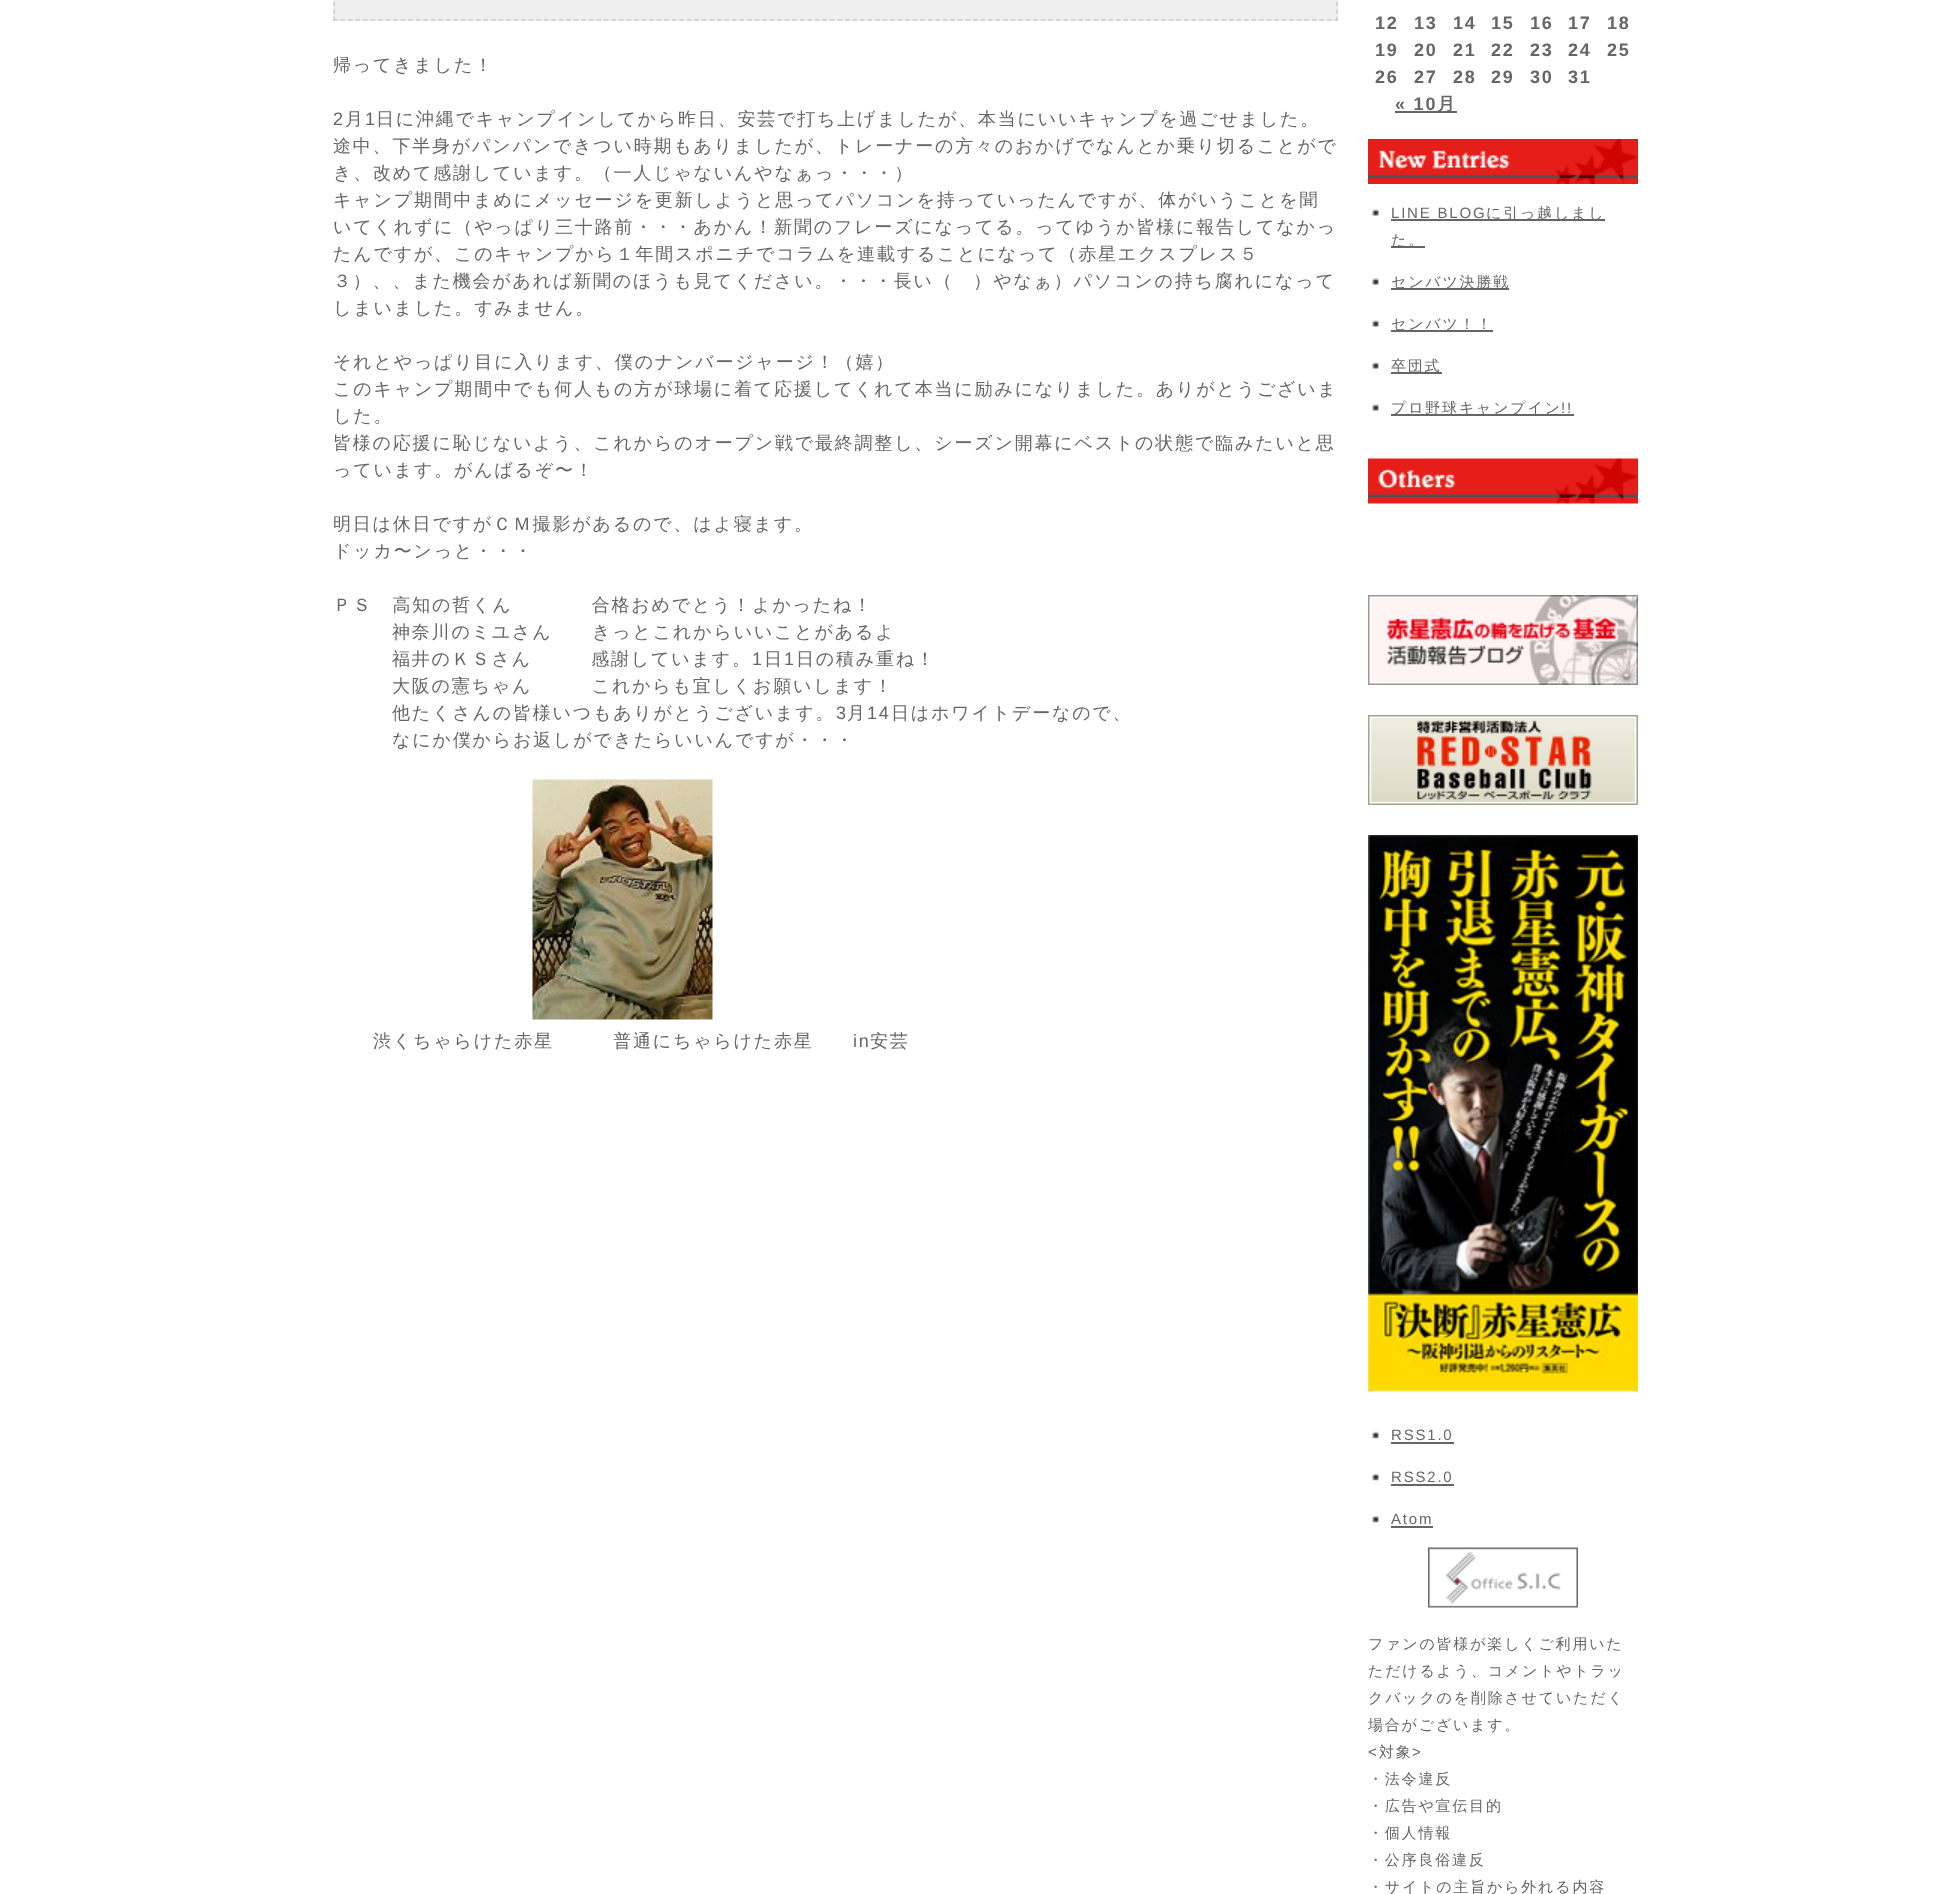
<!DOCTYPE html>
<meta charset="utf-8">
<style>body { margin: 0 } canvas { display: block }</style>
<canvas id="canvas" width="1955" height="1894"></canvas>
<script type="module">
  const canvas = document.getElementById("canvas");
  const g = canvas.getContext("2d");
  g.miterLimit = 4;
  g.fontKerning = "normal";
  function drawText(s, x, y, [font, color]) {
    g.font = font;
    g.fillStyle = color;
    g.fillText(s, x, y);
  }
  function fillBox(x, y, w, h, color) {
    g.fillStyle = color;
    g.fillRect(x, y, w, h);
  }
  async function drawPicture(src, x, y, w, h) {
    const img = new Image();
    img.src = src;
    await img.decode();
    g.drawImage(img, x, y, w, h);
  }

  const s1 = ["500 18px WenQuanYi Zen Hei", "#666666"];
  const s2 = ["18px Liberation Sans", "#666666"];
  const s3 = ["bold 18px Liberation Sans", "#666666"];
  const s4 = ["bold 18px WenQuanYi Zen Hei", "#666666"];
  const s5 = ["15px Liberation Sans", "#666666"];
  const s6 = ["500 15px WenQuanYi Zen Hei", "#666666"];

  fillBox(0, 0, 1955, 1894, "#FFFFFF");
  fillBox(333, 0, 1005, 21, "#EFEFEF");
  g.beginPath();
  g.moveTo(1337, -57);
  g.lineTo(1337, 21);
  g.strokeStyle = "#CCCCCC";
  g.lineWidth = 1.5;
  g.setLineDash([4.5, 2.85]);
  g.stroke();
  g.beginPath();
  g.moveTo(333, 20);
  g.lineTo(1338, 20);
  g.setLineDash([4.5, 3.03]);
  g.stroke();
  g.beginPath();
  g.moveTo(334, -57);
  g.lineTo(334, 21);
  g.setLineDash([4.5, 2.85]);
  g.stroke();
  g.letterSpacing = "1.8px";
  drawText("帰ってきました！", 333, 71, s1);
  drawText("2", 333, 125, s2);
  drawText("月", 345, 125, s1);
  drawText("1", 365, 125, s2);
  drawText("日に沖縄でキャンプインしてから昨日、安芸で打ち上げましたが、本当にいいキャンプを過ごせました。", 376, 125, s1);
  drawText("途中、下半身がパンパンできつい時期もありましたが、トレーナーの方々のおかげでなんとか乗り切ることがで", 333, 152, s1);
  drawText("き、改めて感謝しています。（一人じゃないんやなぁっ・・・）", 333, 179, s1);
  drawText("キャンプ期間中まめにメッセージを更新しようと思ってパソコンを持っていったんですが、体がいうことを聞", 333, 206, s1);
  drawText("いてくれずに（やっぱり三十路前・・・あかん！新聞のフレーズになってる。ってゆうか皆様に報告してなかっ", 333, 233, s1);
  drawText("たんですが、このキャンプから１年間スポニチでコラムを連載することになって（赤星エクスプレス５", 333, 260, s1);
  drawText("３）、、また機会があれば新聞のほうも見てください。・・・長い（　）やなぁ）パソコンの持ち腐れになって", 333, 287, s1);
  drawText("しまいました。すみません。", 333, 314, s1);
  drawText("それとやっぱり目に入ります、僕のナンバージャージ！（嬉）", 333, 368, s1);
  drawText("このキャンプ期間中でも何人もの方が球場に着て応援してくれて本当に励みになりました。ありがとうございま", 333, 395, s1);
  drawText("した。", 333, 422, s1);
  drawText("皆様の応援に恥じないよう、これからのオープン戦で最終調整し、シーズン開幕にベストの状態で臨みたいと思", 333, 449, s1);
  drawText("っています。がんばるぞ〜！", 333, 476, s1);
  drawText("明日は休日ですがＣＭ撮影があるので、はよ寝ます。", 333, 530, s1);
  drawText("ドッカ〜ンっと・・・", 333, 557, s1);
  drawText("ＰＳ　高知の哲くん　　　　合格おめでとう！よかったね！", 333, 611, s1);
  drawText("神奈川のミユさん　　きっとこれからいいことがあるよ", 392, 638, s1);
  drawText("福井のＫＳさん　　　感謝しています。", 392, 665, s1);
  drawText("1", 752, 665, s2);
  drawText("日", 764, 665, s1);
  drawText("1", 784, 665, s2);
  drawText("日の積み重ね！", 796, 665, s1);
  drawText("大阪の憲ちゃん　　　これからも宜しくお願いします！", 392, 692, s1);
  drawText("他たくさんの皆様いつもありがとうございます。", 392, 719, s1);
  drawText("3", 836, 719, s2);
  drawText("月", 847, 719, s1);
  drawText("14", 867, 719, s2);
  drawText("日はホワイトデーなので、", 891, 719, s1);
  drawText("なにか僕からお返しができたらいいんですが・・・", 392, 746, s1);
  await drawPicture("pic1.png", 532, 779, 181, 241);
  drawText("渋くちゃらけた赤星　　　普通にちゃらけた赤星", 373, 1047, s1);
  drawText("in", 853, 1047, s2);
  drawText("安芸", 870, 1047, s1);
  drawText("12", 1375, 29, s3);
  drawText("13", 1414, 29, s3);
  drawText("14", 1453, 29, s3);
  drawText("15", 1491, 29, s3);
  drawText("16", 1530, 29, s3);
  drawText("17", 1568, 29, s3);
  drawText("18", 1607, 29, s3);
  drawText("19", 1375, 56, s3);
  drawText("20", 1414, 56, s3);
  drawText("21", 1453, 56, s3);
  drawText("22", 1491, 56, s3);
  drawText("23", 1530, 56, s3);
  drawText("24", 1568, 56, s3);
  drawText("25", 1607, 56, s3);
  drawText("26", 1375, 83, s3);
  drawText("27", 1414, 83, s3);
  drawText("28", 1453, 83, s3);
  drawText("29", 1491, 83, s3);
  drawText("30", 1530, 83, s3);
  drawText("31", 1568, 83, s3);
  drawText("« 10", 1395, 110, s3);
  fillBox(1395, 111, 62, 2, "#666666");
  drawText("月", 1437, 110, s4);
  await drawPicture("pic2.png", 1368, 139, 270, 45);
  await drawPicture("pic3.png", 1372, 209, 7, 7);
  drawText("LINE BLOG", 1391, 218, s5);
  fillBox(1391, 219, 214, 2, "#666666");
  drawText("に引っ越しまし", 1486, 218, s6);
  fillBox(1391, 246, 34, 2, "#666666");
  drawText("た。", 1391, 245, s6);
  await drawPicture("pic3.png", 1372, 278, 7, 7);
  fillBox(1391, 288, 118, 2, "#666666");
  drawText("センバツ決勝戦", 1391, 287, s6);
  await drawPicture("pic3.png", 1372, 320, 7, 7);
  fillBox(1391, 330, 102, 2, "#666666");
  drawText("センバツ！！", 1391, 329, s6);
  await drawPicture("pic3.png", 1372, 362, 7, 7);
  fillBox(1391, 372, 51, 2, "#666666");
  drawText("卒団式", 1391, 371, s6);
  await drawPicture("pic3.png", 1372, 404, 7, 7);
  fillBox(1391, 414, 183, 2, "#666666");
  drawText("プロ野球キャンプイン", 1391, 413, s6);
  drawText("!!", 1561, 413, s5);
  await drawPicture("pic4.png", 1368, 458, 270, 46);
  await drawPicture("pic5.png", 1368, 595, 270, 90);
  await drawPicture("pic6.png", 1368, 715, 270, 90);
  await drawPicture("pic7.png", 1368, 835, 270, 557);
  await drawPicture("pic8.png", 1372, 1431, 7, 8);
  drawText("RSS1.0", 1391, 1440, s5);
  fillBox(1391, 1442, 63, 2, "#666666");
  await drawPicture("pic8.png", 1372, 1473, 7, 8);
  drawText("RSS2.0", 1391, 1482, s5);
  fillBox(1391, 1484, 63, 2, "#666666");
  await drawPicture("pic8.png", 1372, 1515, 7, 8);
  drawText("Atom", 1391, 1524, s5);
  fillBox(1391, 1526, 42, 2, "#666666");
  await drawPicture("pic9.png", 1428, 1547, 150, 61);
  drawText("ファンの皆様が楽しくご利用いた", 1368, 1649, s6);
  drawText("ただけるよう、コメントやトラッ", 1368, 1676, s6);
  drawText("クバックのを削除させていただく", 1368, 1703, s6);
  drawText("場合がございます。", 1368, 1730, s6);
  drawText("<", 1368, 1757, s5);
  drawText("対象", 1379, 1757, s6);
  drawText(">", 1412, 1757, s5);
  drawText("・法令違反", 1368, 1784, s6);
  drawText("・広告や宣伝目的", 1368, 1811, s6);
  drawText("・個人情報", 1368, 1838, s6);
  drawText("・公序良俗違反", 1368, 1865, s6);
  drawText("・サイトの主旨から外れる内容", 1368, 1892, s6);
</script>
